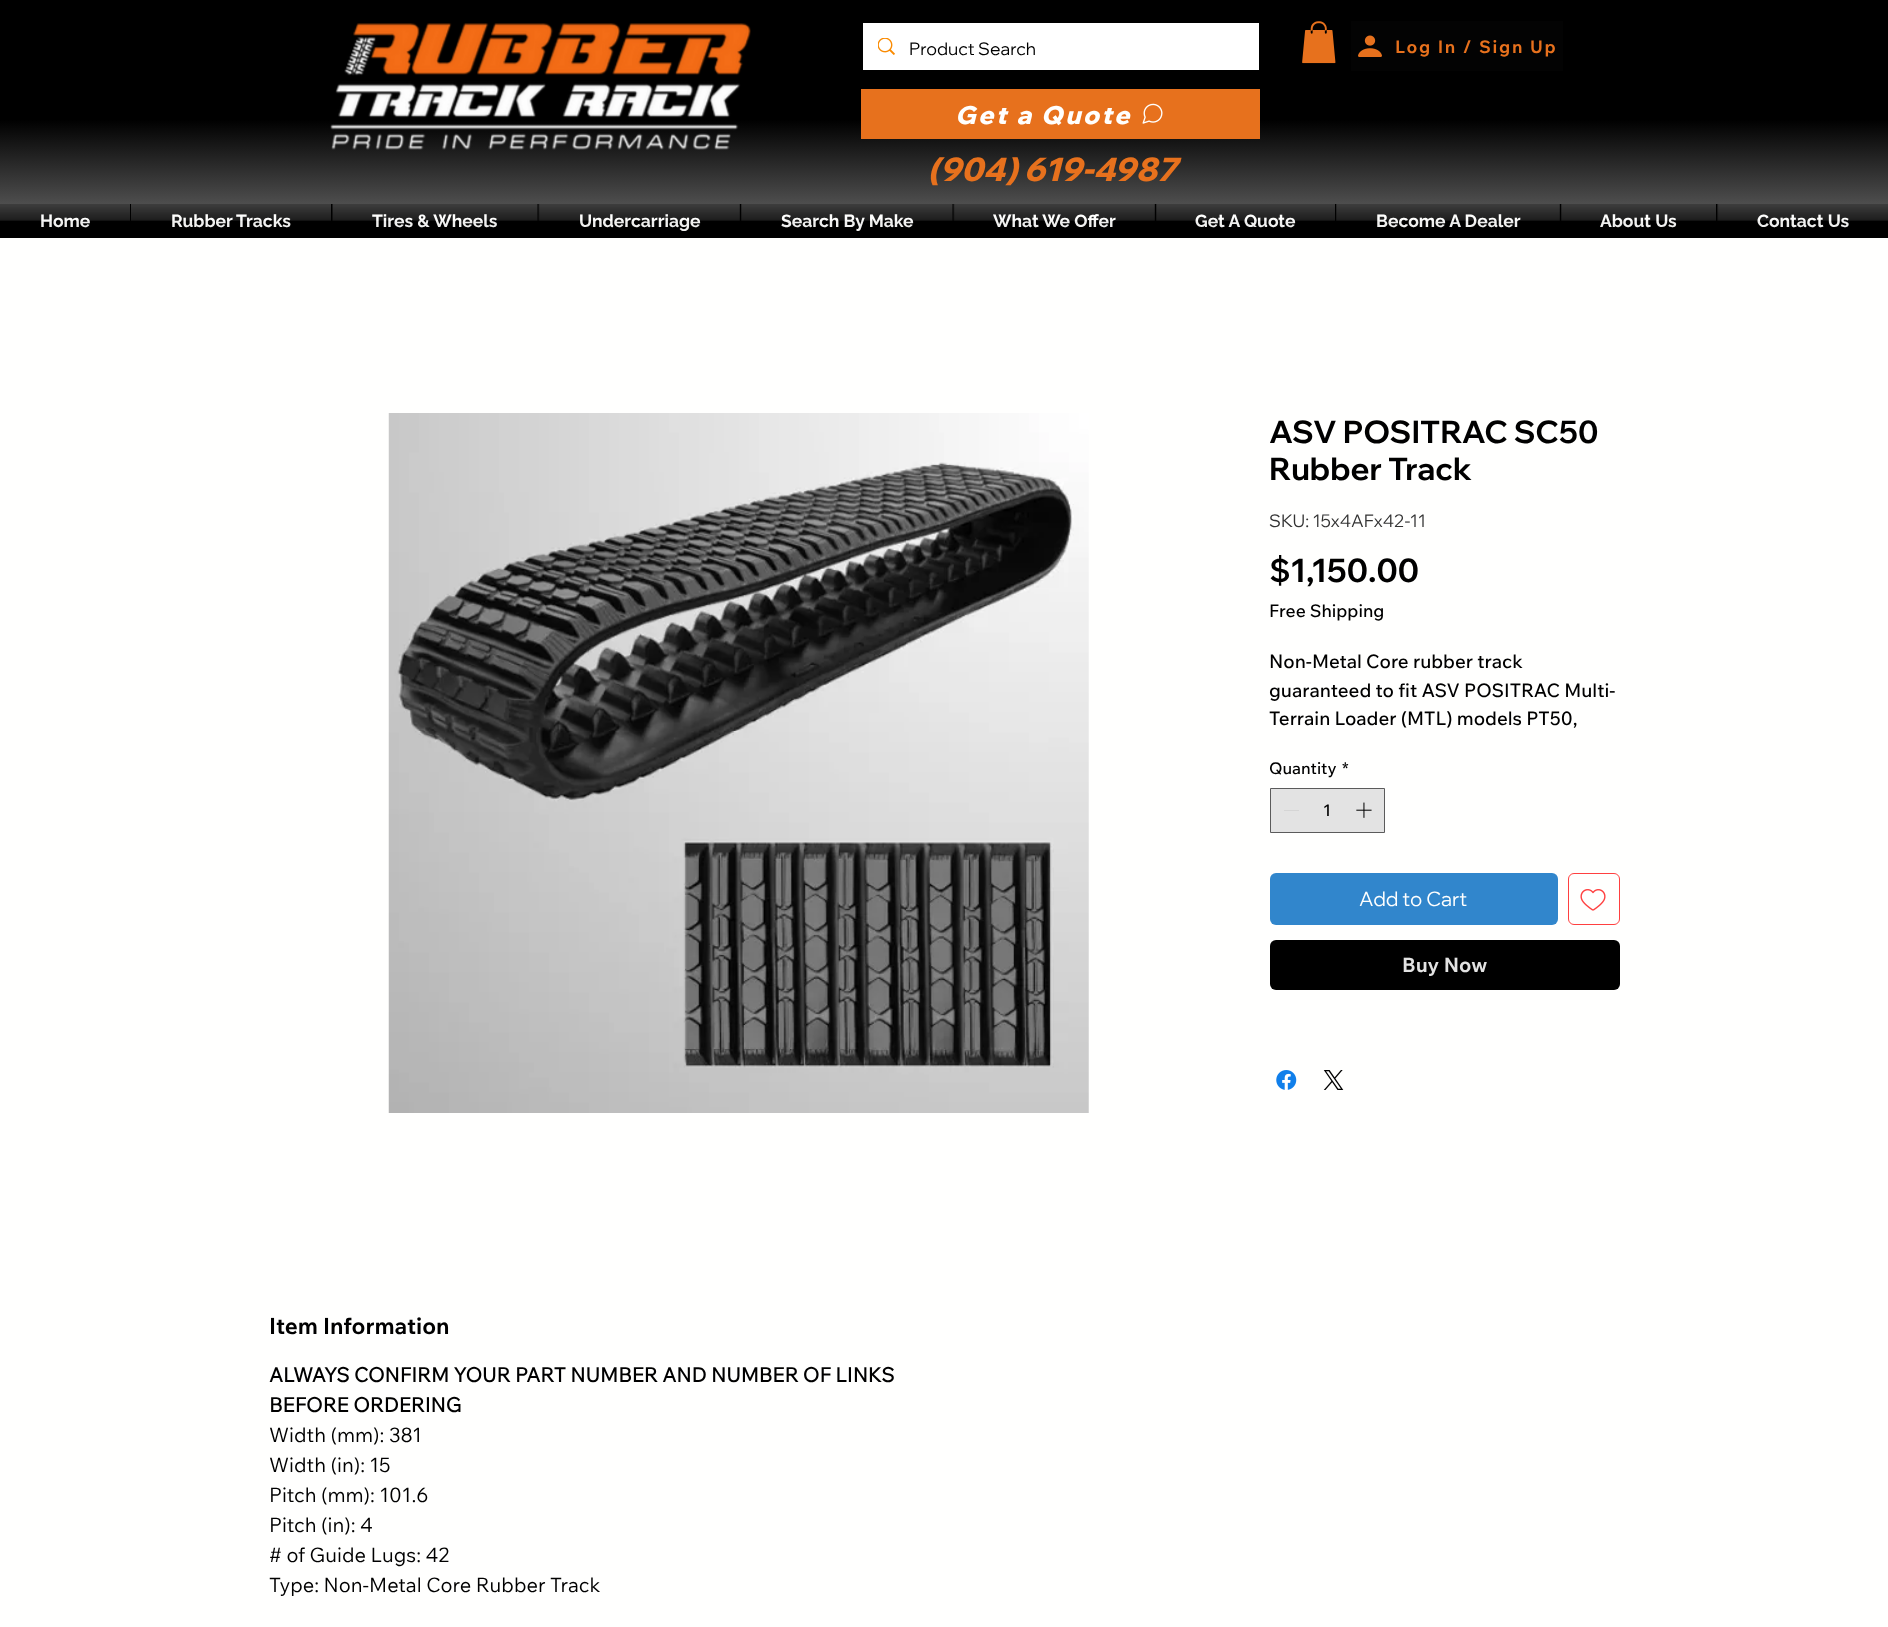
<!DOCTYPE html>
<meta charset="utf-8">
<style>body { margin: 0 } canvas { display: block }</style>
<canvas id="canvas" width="1888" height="1627"></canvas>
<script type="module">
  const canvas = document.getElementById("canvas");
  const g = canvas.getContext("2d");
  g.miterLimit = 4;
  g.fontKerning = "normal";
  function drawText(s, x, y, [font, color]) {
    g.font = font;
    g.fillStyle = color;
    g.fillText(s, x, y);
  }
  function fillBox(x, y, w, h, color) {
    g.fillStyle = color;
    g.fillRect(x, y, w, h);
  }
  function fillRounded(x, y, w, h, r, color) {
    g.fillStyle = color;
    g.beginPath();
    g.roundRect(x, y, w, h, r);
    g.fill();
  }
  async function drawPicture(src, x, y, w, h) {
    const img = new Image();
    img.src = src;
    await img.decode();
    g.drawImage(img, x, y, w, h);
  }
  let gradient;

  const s1 = ["17.5px Wix Madefor Display", "#000000"];
  const s2 = ["bold 17.5px Wix Madefor Text", "#E7711D"];
  const s3 = ["italic 800 25px Wix Madefor Display", "#FFFFFE"];
  const s4 = ["italic 800 32.5px Wix Madefor Display", "#E7711D"];
  const s5 = ["bold 17.5px Raleway", "#FFFFFE"];
  const s6 = ["bold 31.25px Wix Madefor Display", "#000000"];
  const s7 = ["17.5px Wix Madefor Display", "#333333"];
  const s8 = ["bold 32.5px Wix Madefor Display", "#000000"];
  const s9 = ["500 17.5px Wix Madefor Text", "#000000"];
  const s10 = ["500 18.75px Wix Madefor Text", "#000000"];
  const s11 = ["500 16.25px Wix Madefor Text", "#000000"];
  const s12 = ["20px Wix Madefor Display", "#FFFFFE"];
  const s13 = ["bold 20px Wix Madefor Text", "#E3E3E3"];
  const s14 = ["bold 22.5px Wix Madefor Text", "#000000"];
  const s15 = ["bold 20px 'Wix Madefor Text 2'", "#000000"];
  const s16 = ["20px Wix Madefor Text", "#000000"];

  fillBox(0, 0, 1888, 1627, "#FFFFFE");
  gradient = g.createLinearGradient(944, 0, 944, 230);
  gradient.addColorStop(0.52, "#000000");
  gradient.addColorStop(1, "#666666");
  g.fillStyle = gradient;
  g.fillRect(0, 0, 1888, 204);
  await drawPicture("pic1.png", 330, 23, 421, 127);
  fillBox(863, 23, 396, 47, "#FFFFFF");
  await drawPicture("pic2.png", 878, 38, 17, 17);
  drawText("Product Search", 909, 55, s1);
  await drawPicture("pic3.png", 1302, 21, 34, 43);
  fillBox(1351, 21, 212, 50, "#030303");
  await drawPicture("pic4.png", 1358, 35, 24, 22);
  g.letterSpacing = "1.75px";
  drawText("Log In / Sign Up", 1395, 53, s2);
  fillBox(861, 89, 399, 50, "#E7711D");
  g.letterSpacing = "2.5px";
  drawText("Get a Quote", 955, 124, s3);
  await drawPicture("pic5.png", 1142, 103, 21, 21);
  g.letterSpacing = "0.3px";
  drawText("(904) 619-4987", 928, 181, s4);
  fillBox(0, 204, 1888, 34, "#000000");
  g.letterSpacing = "0px";
  drawText("Home", 40, 227, s5);
  await drawPicture("pic6.png", 0, 204, 130, 23);
  drawText("Rubber Tracks", 171, 227, s5);
  await drawPicture("pic7.png", 131, 204, 200, 23);
  drawText("Tires & Wheels", 372, 227, s5);
  await drawPicture("pic8.png", 332, 204, 206, 23);
  drawText("Undercarriage", 579, 227, s5);
  await drawPicture("pic9.png", 538, 204, 202, 27);
  drawText("Search By Make", 781, 227, s5);
  await drawPicture("pic10.png", 741, 204, 212, 27);
  drawText("What We Offer", 993, 227, s5);
  await drawPicture("pic11.png", 953, 204, 202, 23);
  drawText("Get A Quote", 1195, 227, s5);
  await drawPicture("pic12.png", 1156, 204, 179, 23);
  drawText("Become A Dealer", 1376, 227, s5);
  await drawPicture("pic13.png", 1336, 204, 224, 23);
  drawText("About Us", 1600, 227, s5);
  await drawPicture("pic14.png", 1561, 204, 155, 23);
  drawText("Contact Us", 1757, 227, s5);
  await drawPicture("pic15.png", 1717, 204, 171, 23);
  await drawPicture("pic16.png", 388, 413, 701, 700);
  drawText("ASV POSITRAC SC50", 1269, 443, s6);
  drawText("Rubber Track", 1269, 480, s6);
  drawText("SKU: 15x4AFx42-11", 1269, 527, s7);
  drawText("$1,150.00", 1269, 582, s8);
  drawText("Free Shipping", 1269, 617, s9);
  drawText("Non-Metal Core rubber track", 1269, 668, s10);
  drawText("guaranteed to fit ASV POSITRAC Multi-", 1269, 697, s10);
  drawText("Terrain Loader (MTL) models PT50,", 1269, 725, s10);
  drawText("Quantity", 1269, 774, s11);
  drawText("*", 1342, 774, s11);
  g.fillStyle = "#E3E3E3";
  g.beginPath();
  g.rect(1270.5, 788.5, 114, 44);
  g.fill();
  g.strokeStyle = "#5B5B5B";
  g.stroke();
  fillBox(1284, 810, 15, 1, "#D5D5D5");
  drawText("1", 1323, 816, s11);
  await drawPicture("pic17.png", 1356, 802, 16, 16);
  fillRounded(1270, 873, 288, 52, 6, "#3186CC");
  drawText("Add to Cart", 1359, 906, s12);
  g.beginPath();
  g.roundRect(1568.5, 873.5, 51, 51, 5.5);
  g.strokeStyle = "#FF4040";
  g.stroke();
  await drawPicture("pic18.png", 1580, 889, 26, 22);
  fillRounded(1270, 940, 350, 50, 6, "#000000");
  drawText("Buy Now", 1402, 972, s13);
  await drawPicture("pic19.png", 1276, 1070, 21, 20);
  await drawPicture("pic20.png", 1323, 1070, 21, 20);
  drawText("Item Information", 269, 1334, s14);
  drawText("ALWAYS CONFIRM YOUR PART NUMBER AND NUMBER OF LINKS", 269, 1382, s15);
  drawText("BEFORE ORDERING", 269, 1412, s15);
  drawText("Width (mm): 381", 269, 1442, s16);
  drawText("Width (in): 15", 269, 1472, s16);
  drawText("Pitch (mm): 101.6", 269, 1502, s16);
  drawText("Pitch (in): 4", 269, 1532, s16);
  drawText("# of Guide Lugs: 42", 269, 1562, s16);
  drawText("Type: Non-Metal Core Rubber Track", 269, 1592, s16);
</script>
